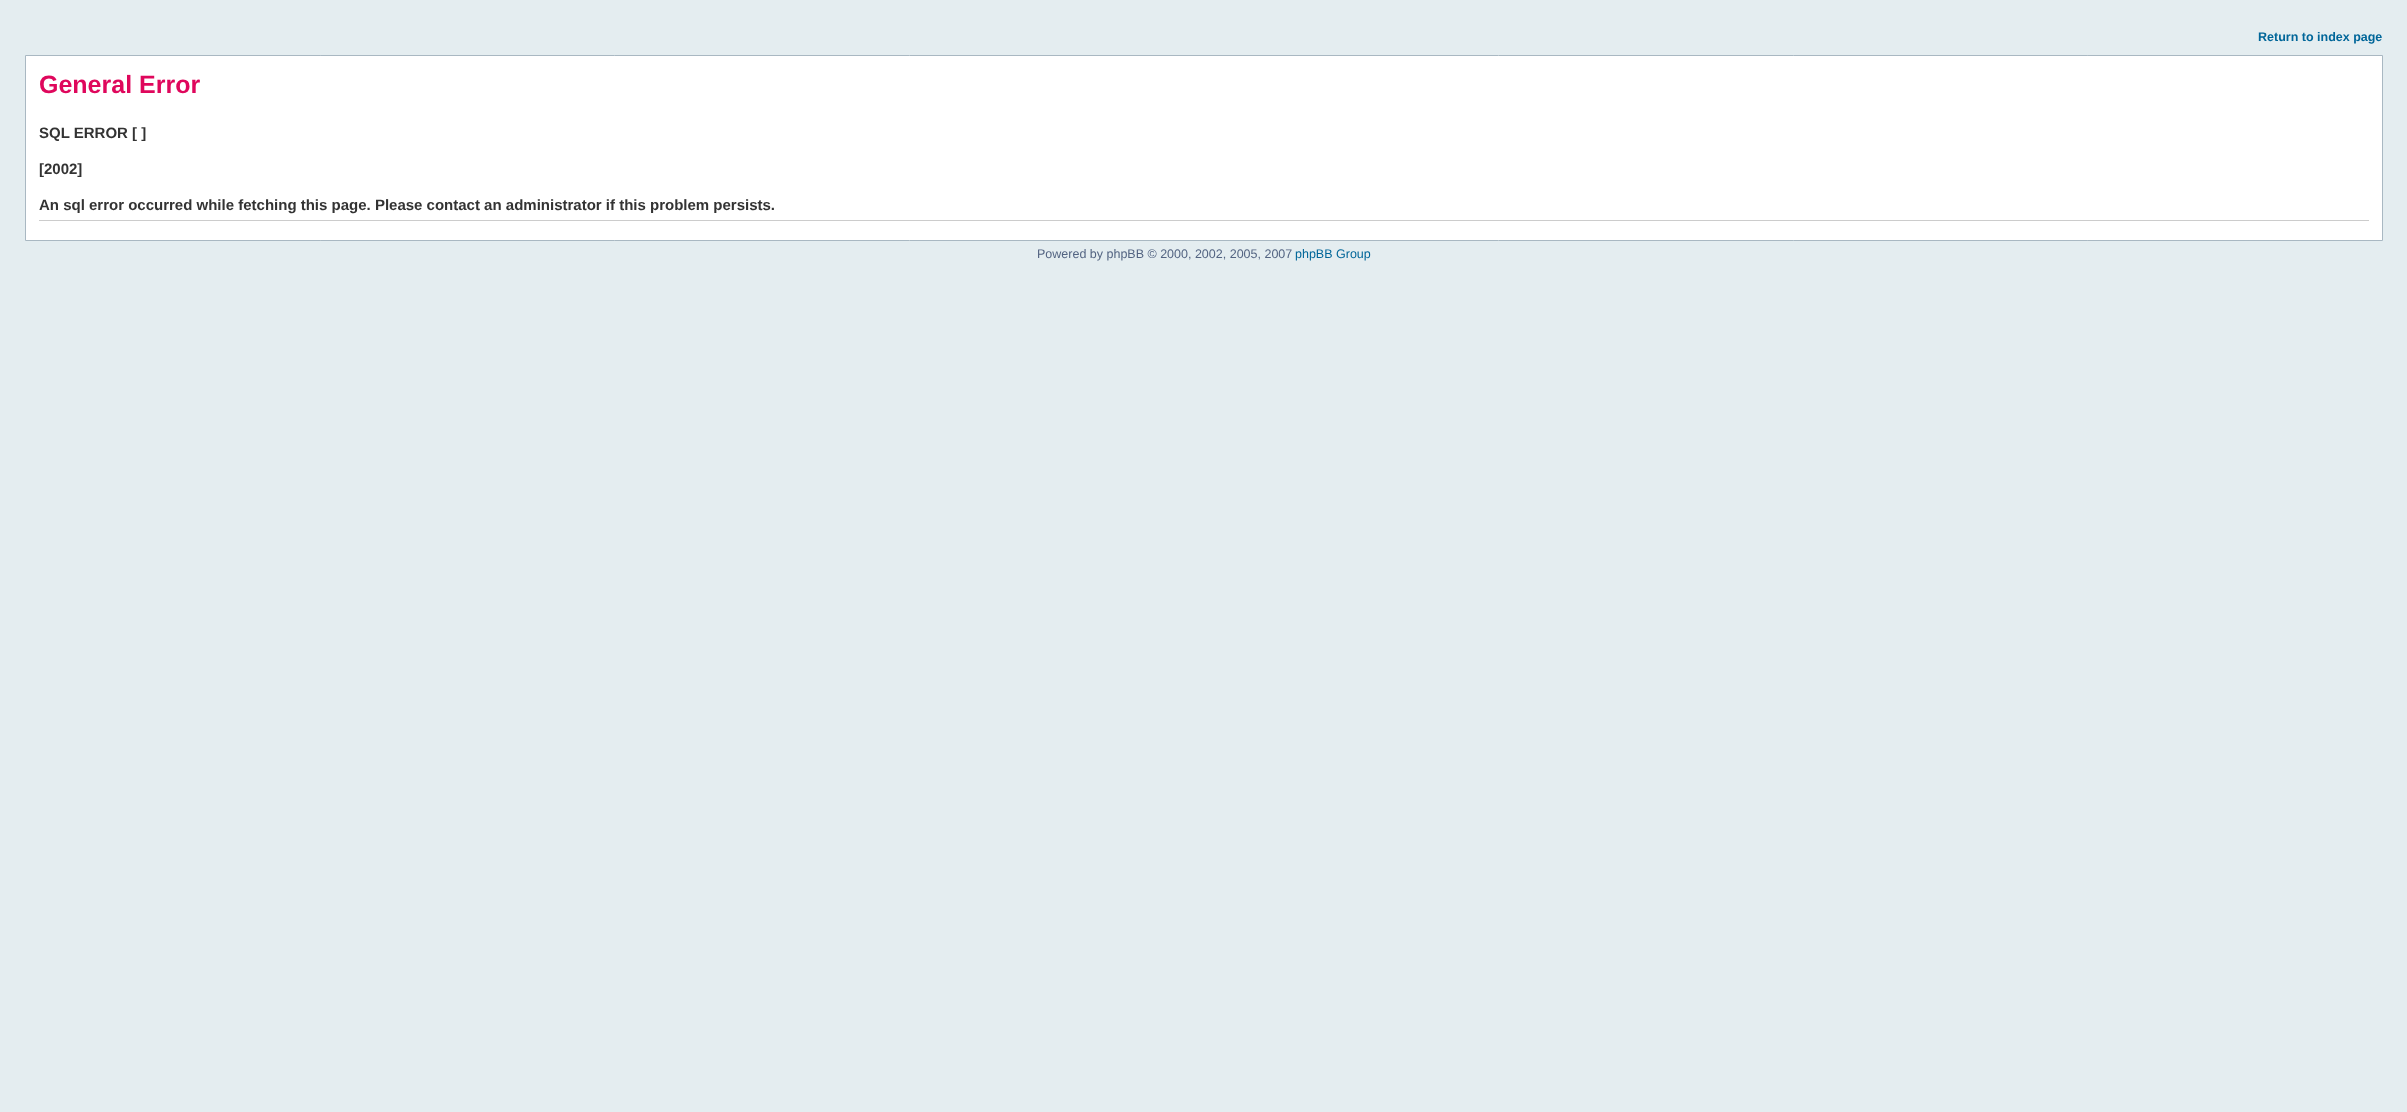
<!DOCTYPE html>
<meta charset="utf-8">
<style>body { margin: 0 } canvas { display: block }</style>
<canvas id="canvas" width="2407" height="1112"></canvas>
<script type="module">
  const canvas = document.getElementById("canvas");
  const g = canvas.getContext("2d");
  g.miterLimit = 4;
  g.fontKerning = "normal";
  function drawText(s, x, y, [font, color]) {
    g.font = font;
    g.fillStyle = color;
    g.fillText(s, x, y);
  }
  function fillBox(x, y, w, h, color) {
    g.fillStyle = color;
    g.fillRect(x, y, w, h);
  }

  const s1 = ["bold 12.5px Liberation Sans", "#006699"];
  const s2 = ["bold 25px Liberation Sans", "#DF075C"];
  const s3 = ["bold 15px Liberation Sans", "#333333"];
  const s4 = ["12.5px Liberation Sans", "#536482"];
  const s5 = ["12.5px Liberation Sans", "#006699"];

  fillBox(0, 0, 2407, 1112, "#E4EDF0");
  drawText("Return to index page", 2258, 41, s1);
  g.fillStyle = "#FFFFFF";
  g.beginPath();
  g.rect(25.5, 55.5, 2357, 185);
  g.fill();
  g.strokeStyle = "#A9B8C2";
  g.stroke();
  drawText("General Error", 39, 93, s2);
  fillBox(39, 220, 2330, 1, "#CCCCCC");
  drawText("SQL ERROR [ ]", 39, 138, s3);
  drawText("[2002]", 39, 174, s3);
  drawText("An sql error occurred while fetching this page. Please contact an administrator if this problem persists.", 39, 210, s3);
  drawText("Powered by phpBB © 2000, 2002, 2005, 2007", 1037, 258, s4);
  drawText("phpBB Group", 1295, 258, s5);
</script>
